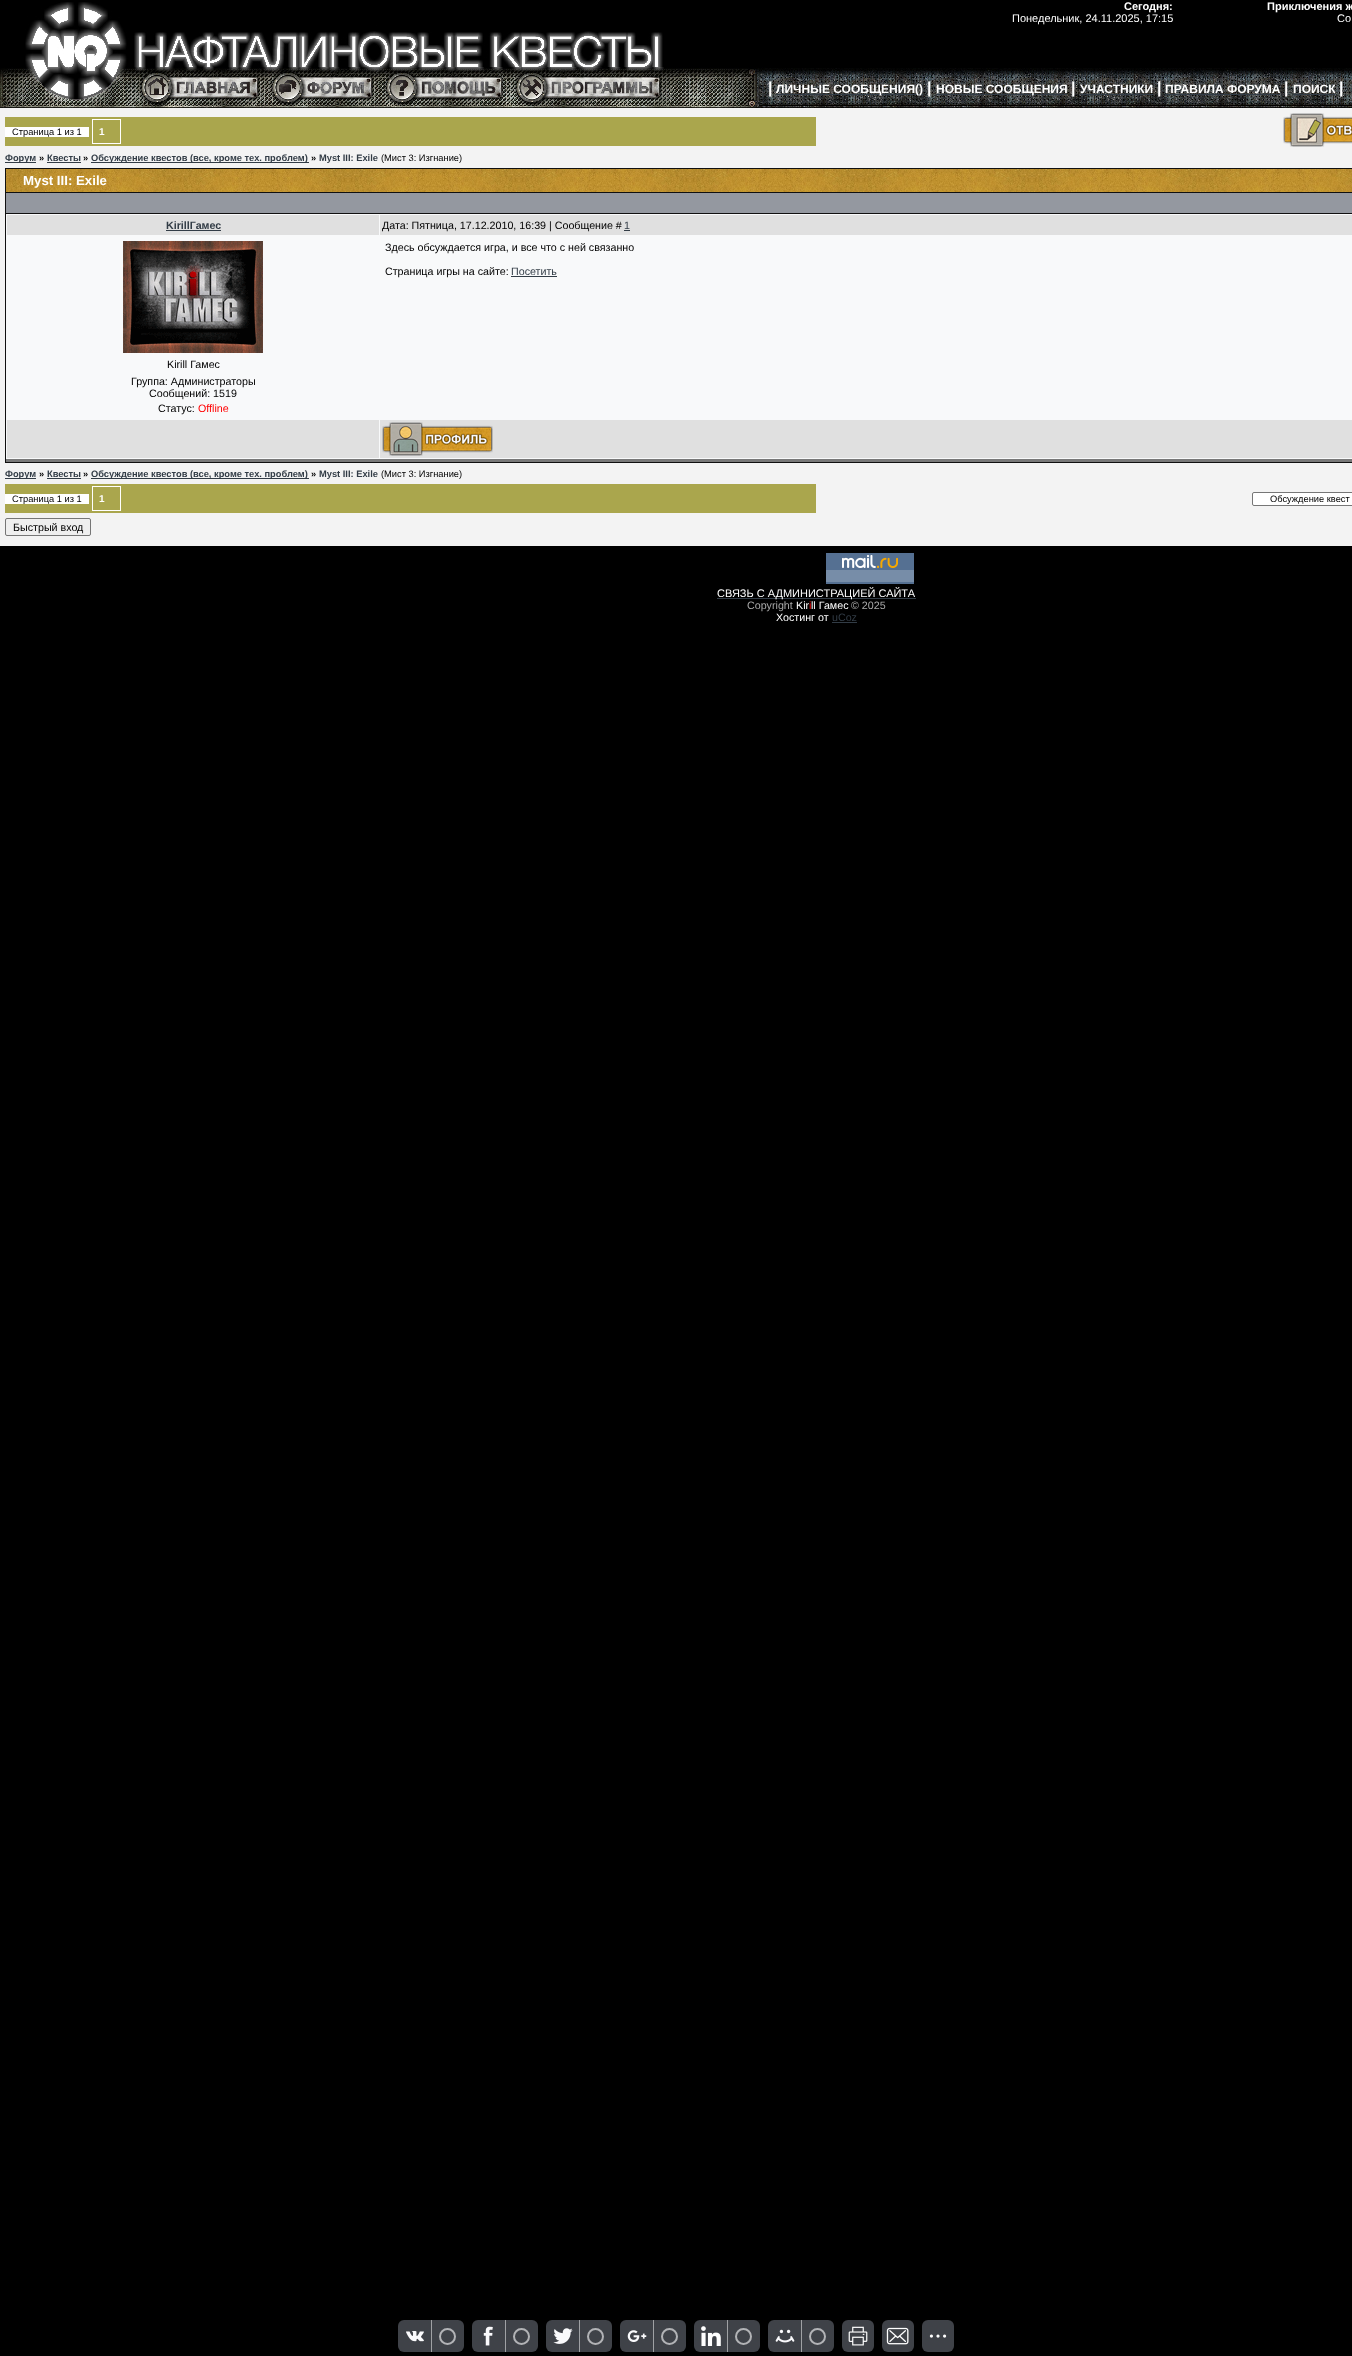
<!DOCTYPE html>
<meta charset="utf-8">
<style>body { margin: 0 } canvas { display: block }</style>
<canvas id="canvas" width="1352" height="2356"></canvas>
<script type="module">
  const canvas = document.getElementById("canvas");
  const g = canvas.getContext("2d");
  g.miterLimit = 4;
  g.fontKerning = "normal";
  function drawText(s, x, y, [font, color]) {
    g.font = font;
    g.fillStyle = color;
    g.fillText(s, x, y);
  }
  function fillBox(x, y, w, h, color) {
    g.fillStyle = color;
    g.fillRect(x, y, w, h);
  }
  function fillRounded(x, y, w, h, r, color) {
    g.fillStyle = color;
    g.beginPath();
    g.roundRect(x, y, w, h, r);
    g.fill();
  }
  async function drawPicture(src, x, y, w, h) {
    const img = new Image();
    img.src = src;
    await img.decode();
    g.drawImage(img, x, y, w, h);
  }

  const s1 = ["bold 11px Liberation Sans", "#FFFFFF"];
  const s2 = ["11px Liberation Sans", "#FFFFFF"];
  const s3 = ["bold 16px Liberation Sans", "#FFFFFF"];
  const s4 = ["bold 12px Liberation Sans", "#FFFFFF"];
  const s5 = ["9.3px Liberation Sans", "#000000"];
  const s6 = ["bold 10px Liberation Sans", "#FFFFFF"];
  const s7 = ["bold 9.3px Liberation Sans", "#323C46"];
  const s8 = ["bold 9.3px Liberation Sans", "#000000"];
  const s9 = ["bold 13.25px Liberation Sans", "#FFFFFF"];
  const s10 = ["bold 10.7px Liberation Sans", "#323C46"];
  const s11 = ["10.7px Liberation Sans", "#000000"];
  const s12 = ["10.7px Liberation Sans", "#323C46"];
  const s13 = ["10.7px Liberation Sans", "#FF0000"];
  const s14 = ["10.7px Liberation Sans", "#A9A9A9"];
  const s15 = ["10.7px Liberation Sans", "#FFFFFF"];

  fillBox(0, 0, 1352, 2356, "#000000");
  await drawPicture("pic1.png", 25, 2, 638, 65);
  drawText("Сегодня:", 1124, 10, s1);
  drawText("Понедельник, 24.11.2025, 17:15", 1012, 22, s2);
  drawText("Приключения ж", 1267, 10, s1);
  drawText("Со", 1337, 22, s2);
  await drawPicture("pic2.png", 0, 67, 142, 41);
  await drawPicture("pic3.png", 142, 67, 116, 41);
  await drawPicture("pic4.png", 258, 67, 15, 41);
  await drawPicture("pic5.png", 273, 67, 99, 41);
  await drawPicture("pic6.png", 372, 67, 15, 41);
  await drawPicture("pic7.png", 387, 67, 115, 41);
  await drawPicture("pic8.png", 502, 67, 15, 41);
  await drawPicture("pic9.png", 517, 67, 143, 41);
  await drawPicture("pic10.png", 660, 67, 18, 41);
  await drawPicture("pic11.png", 678, 67, 90, 41);
  await drawPicture("pic12.png", 768, 68, 576, 40);
  drawText("|", 768, 93, s3);
  fillBox(776, 94, 147, 1, "#323C46");
  drawText("ЛИЧНЫЕ СООБЩЕНИЯ()", 776, 93, s4);
  drawText("|", 927, 93, s3);
  fillBox(936, 94, 131, 1, "#323C46");
  drawText("НОВЫЕ СООБЩЕНИЯ", 936, 93, s4);
  drawText("|", 1071, 93, s3);
  drawText("УЧАСТНИКИ", 1080, 93, s4);
  fillBox(1080, 94, 73, 1, "#323C46");
  drawText("|", 1157, 93, s3);
  drawText("ПРАВИЛА ФОРУМА", 1165, 93, s4);
  fillBox(1165, 94, 115, 1, "#323C46");
  drawText("|", 1284, 93, s3);
  drawText("ПОИСК", 1293, 93, s4);
  fillBox(1293, 94, 42, 1, "#323C46");
  drawText("|", 1339, 93, s3);
  await drawPicture("pic13.png", 1344, 68, 8, 40);
  fillBox(0, 108, 1352, 438, "#F3F3F3");
  fillBox(5, 117, 811, 29, "#AAA64D");
  fillBox(5, 127, 84, 10, "#FFFFFF");
  drawText("Страница 1 из 1", 12, 135, s5);
  g.strokeStyle = "#FFFFFF";
  g.strokeRect(92.5, 119.5, 28, 24);
  drawText("1", 99, 135, s6);
  await drawPicture("pic14.png", 1283, 113, 69, 34);
  fillBox(5, 162, 31, 1, "#323C46");
  drawText("Форум", 5, 161, s7);
  drawText("»", 39, 161, s8);
  drawText("Квесты", 47, 161, s7);
  fillBox(47, 162, 34, 1, "#323C46");
  drawText("»", 83, 161, s8);
  fillBox(91, 162, 218, 1, "#323C46");
  drawText("Обсуждение квестов (все, кроме тех. проблем)", 91, 161, s7);
  drawText("»", 311, 161, s8);
  drawText("Myst III: Exile", 319, 161, s7);
  drawText("(Мист 3: Изгнание)", 381, 161, s5);
  fillBox(5, 168, 1347, 295, "#101010");
  await drawPicture("pic15.png", 6, 169, 1346, 23);
  drawText("Myst III: Exile", 23, 185, s9);
  fillBox(6, 193, 1346, 20, "#9498A0");
  fillBox(6, 214, 1346, 245, "#F8F9FA");
  fillBox(6, 459, 1346, 3, "#787878");
  fillBox(7, 215, 372, 20, "#E0E0E0");
  drawText("KirillГамес", 166, 229, s10);
  fillBox(166, 230, 55, 1, "#323C46");
  fillBox(380, 215, 972, 20, "#E0E0E0");
  drawText("Дата: Пятница, 17.12.2010, 16:39 | Сообщение #", 382, 229, s11);
  drawText("1", 624, 229, s12);
  fillBox(624, 230, 6, 1, "#323C46");
  drawText("Здесь обсуждается игра, и все что с ней связанно", 385, 251, s11);
  drawText("Страница игры на сайте:", 385, 275, s11);
  drawText("Посетить", 511, 275, s12);
  fillBox(511, 276, 46, 1, "#323C46");
  await drawPicture("pic16.png", 123, 241, 140, 112);
  drawText("Kirill Гамес", 167, 368, s11);
  drawText("Группа: Администраторы", 131, 385, s11);
  drawText("Сообщений: 1519", 149, 397, s11);
  drawText("Статус:", 158, 412, s11);
  drawText("Offline", 198, 412, s13);
  fillBox(7, 420, 372, 38, "#E0E0E0");
  fillBox(380, 420, 972, 38, "#E0E0E0");
  await drawPicture("pic17.png", 382, 422, 111, 34);
  fillBox(5, 478, 31, 1, "#323C46");
  drawText("Форум", 5, 477, s7);
  drawText("»", 39, 477, s8);
  drawText("Квесты", 47, 477, s7);
  fillBox(47, 478, 34, 1, "#323C46");
  drawText("»", 83, 477, s8);
  fillBox(91, 478, 218, 1, "#323C46");
  drawText("Обсуждение квестов (все, кроме тех. проблем)", 91, 477, s7);
  drawText("»", 311, 477, s8);
  drawText("Myst III: Exile", 319, 477, s7);
  drawText("(Мист 3: Изгнание)", 381, 477, s5);
  fillBox(5, 484, 811, 29, "#AAA64D");
  fillBox(5, 494, 84, 10, "#FFFFFF");
  drawText("Страница 1 из 1", 12, 502, s5);
  g.strokeRect(92.5, 486.5, 28, 24);
  drawText("1", 99, 502, s6);
  g.beginPath();
  g.roundRect(1252.5, 492.5, 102, 13, 1.5);
  g.fill();
  g.strokeStyle = "#767676";
  g.stroke();
  drawText("Обсуждение квест", 1270, 502, s5);
  g.fillStyle = "#EFEFEF";
  g.beginPath();
  g.roundRect(5.5, 518.5, 85, 17, 1.5);
  g.fill();
  g.stroke();
  drawText("Быстрый вход", 13, 531, s11);
  await drawPicture("pic18.png", 826, 553, 88, 31);
  fillBox(717, 598, 199, 1, "#323C46");
  drawText("СВЯЗЬ С АДМИНИСТРАЦИЕЙ САЙТА", 717, 597, s2);
  drawText("Copyright", 747, 609, s14);
  drawText("Kir", 796, 609, s15);
  drawText("i", 809, 609, s13);
  drawText("ll Гамес", 811, 609, s15);
  drawText("© 2025", 851, 609, s14);
  drawText("Хостинг от", 776, 621, s15);
  drawText("uCoz", 832, 621, s12);
  fillBox(832, 622, 25, 1, "#323C46");
  fillRounded(398, 2320, 66, 32, 6, "#3F4248");
  await drawPicture("pic19.png", 406, 2331, 18, 11);
  fillBox(431, 2320, 1, 32, "#9FA1A4");
  g.beginPath();
  g.arc(447.5, 2336.5, 7.5, 0, Math.PI * 2);
  g.strokeStyle = "#B2B3B6";
  g.lineWidth = 2;
  g.stroke();
  fillRounded(472, 2320, 66, 32, 6, "#3F4248");
  await drawPicture("pic20.png", 483, 2326, 10, 20);
  fillBox(505, 2320, 1, 32, "#9FA1A4");
  g.beginPath();
  g.arc(521.5, 2336.5, 7.5, 0, Math.PI * 2);
  g.stroke();
  fillRounded(546, 2320, 66, 32, 6, "#3F4248");
  await drawPicture("pic21.png", 553, 2328, 20, 16);
  fillBox(579, 2320, 1, 32, "#9FA1A4");
  g.beginPath();
  g.arc(595.5, 2336.5, 7.5, 0, Math.PI * 2);
  g.stroke();
  fillRounded(620, 2320, 66, 32, 6, "#3F4248");
  await drawPicture("pic22.png", 627, 2330, 20, 12);
  fillBox(653, 2320, 1, 32, "#9FA1A4");
  g.beginPath();
  g.arc(669.5, 2336.5, 7.5, 0, Math.PI * 2);
  g.stroke();
  fillRounded(694, 2320, 66, 32, 6, "#3F4248");
  await drawPicture("pic23.png", 701, 2326, 20, 20);
  fillBox(727, 2320, 1, 32, "#9FA1A4");
  g.beginPath();
  g.arc(743.5, 2336.5, 7.5, 0, Math.PI * 2);
  g.stroke();
  fillRounded(768, 2320, 66, 32, 6, "#3F4248");
  await drawPicture("pic24.png", 775, 2329, 20, 14);
  fillBox(801, 2320, 1, 32, "#9FA1A4");
  g.beginPath();
  g.arc(817.5, 2336.5, 7.5, 0, Math.PI * 2);
  g.stroke();
  fillRounded(842, 2320, 32, 32, 6, "#3F4248");
  await drawPicture("pic25.png", 848, 2326, 20, 20);
  fillRounded(882, 2320, 32, 32, 6, "#3F4248");
  await drawPicture("pic26.png", 886, 2327, 23, 18);
  fillRounded(922, 2320, 32, 32, 6, "#3F4248");
  await drawPicture("pic27.png", 929, 2334, 18, 4);
</script>
